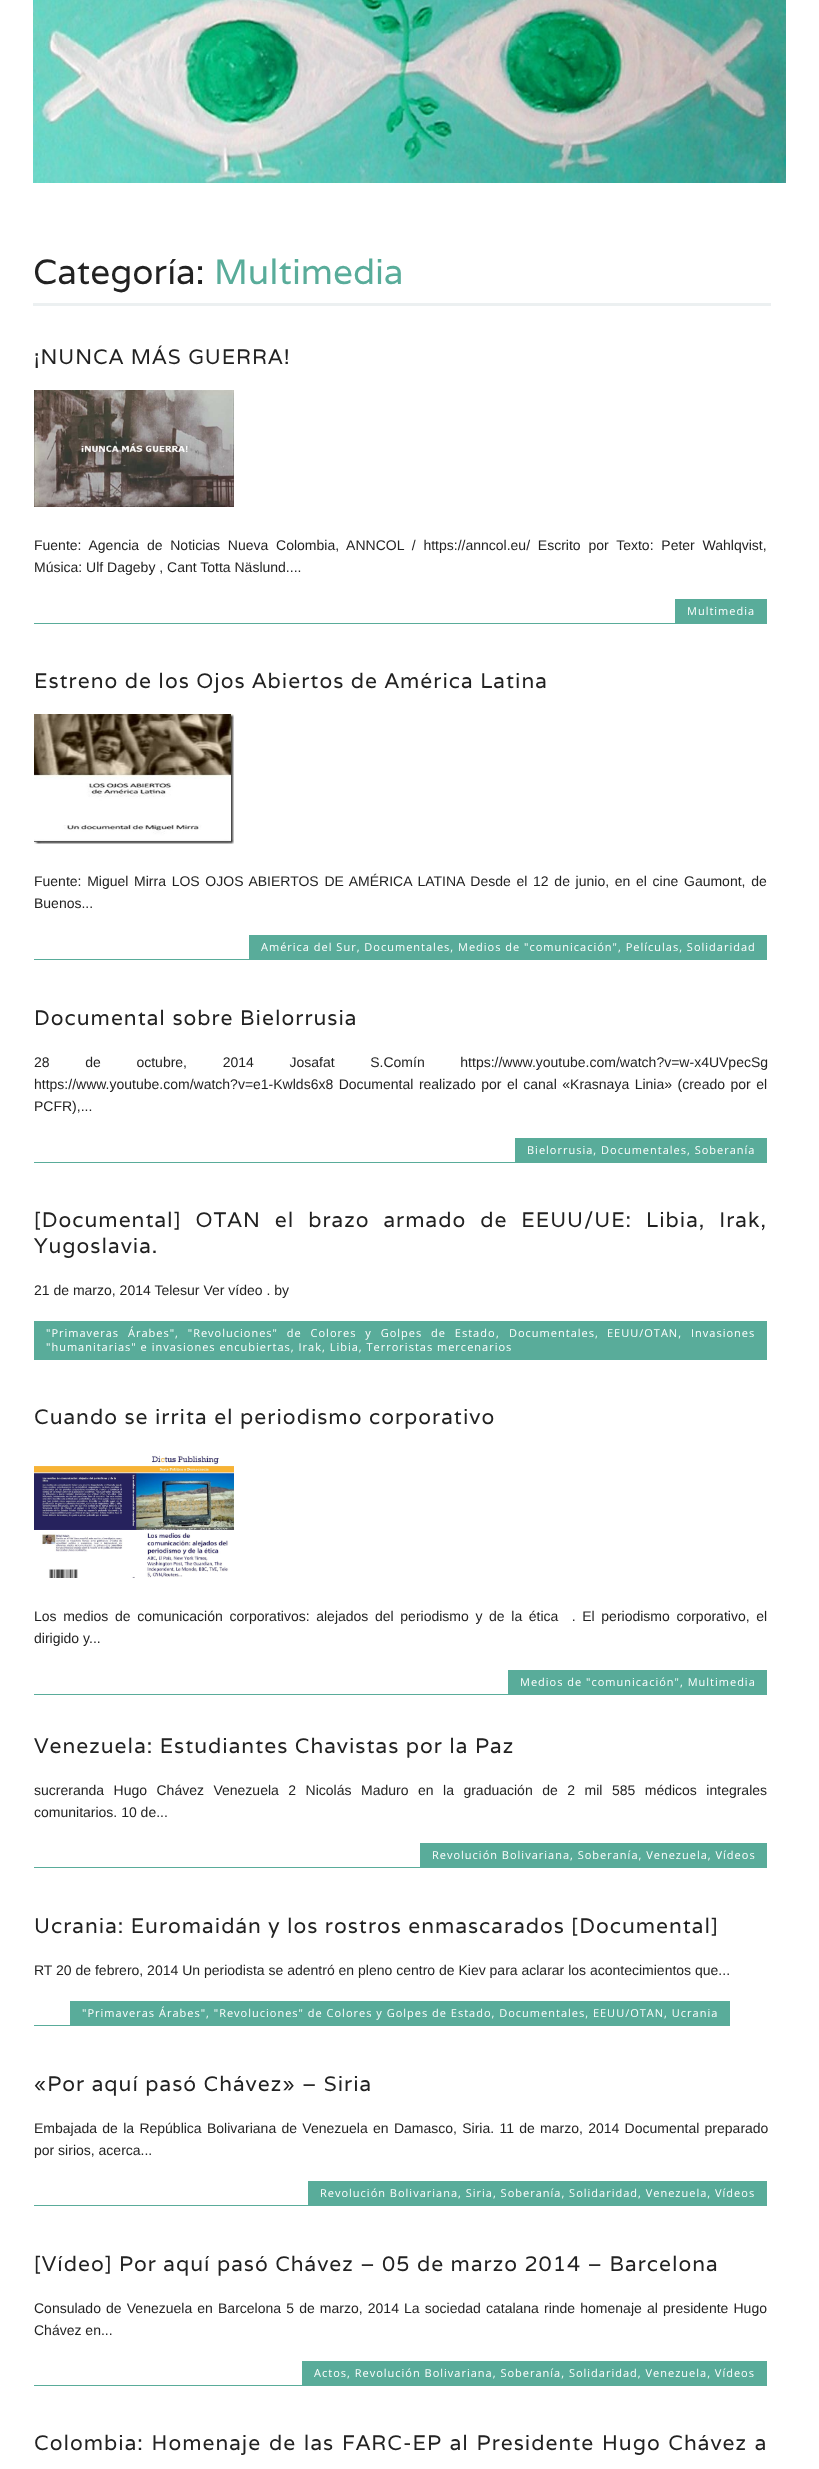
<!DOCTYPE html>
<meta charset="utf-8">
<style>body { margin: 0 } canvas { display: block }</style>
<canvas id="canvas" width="819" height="2469"></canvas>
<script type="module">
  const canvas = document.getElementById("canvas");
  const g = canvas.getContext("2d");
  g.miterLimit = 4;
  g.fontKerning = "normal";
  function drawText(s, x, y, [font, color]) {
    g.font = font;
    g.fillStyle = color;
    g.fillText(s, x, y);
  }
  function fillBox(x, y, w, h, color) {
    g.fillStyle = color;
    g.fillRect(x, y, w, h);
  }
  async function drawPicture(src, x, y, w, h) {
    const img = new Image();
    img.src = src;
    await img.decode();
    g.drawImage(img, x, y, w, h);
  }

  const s1 = ["35px Varela", "#222222"];
  const s2 = ["35px Varela", "#59AC9A"];
  const s3 = ["21px Varela", "#222222"];
  const s4 = ["14px Liberation Sans", "#222222"];
  const s5 = ["11px Open Sans", "#FFFFFF"];

  fillBox(0, 0, 819, 2469, "#FFFFFF");
  await drawPicture("pic1.png", 33, 0, 753, 183);
  fillBox(33, 303, 738, 3, "#ECF0F1");
  drawText("Categoría:", 33, 284, s1);
  drawText("Multimedia", 214, 284, s2);
  g.letterSpacing = "1px";
  drawText("¡NUNCA MÁS GUERRA!", 34, 364, s3);
  await drawPicture("pic2.png", 34, 390, 200, 117);
  g.letterSpacing = "0px";
  g.wordSpacing = "3.9px";
  drawText("Fuente: Agencia de Noticias Nueva Colombia, ANNCOL / https://anncol.eu/ Escrito por Texto: Peter Wahlqvist,", 34, 550, s4);
  g.wordSpacing = "0px";
  drawText("Música: Ulf Dageby , Cant Totta Näslund....", 34, 572, s4);
  fillBox(675, 599, 92, 24, "#59AC9A");
  g.letterSpacing = "1px";
  drawText("Multimedia", 687, 615, s5);
  fillBox(34, 623, 733, 1, "#59AC9A");
  drawText("Estreno de los Ojos Abiertos de América Latina", 34, 688, s3);
  await drawPicture("pic3.png", 34, 714, 200, 130);
  g.letterSpacing = "0px";
  g.wordSpacing = "1.8px";
  drawText("Fuente: Miguel Mirra LOS OJOS ABIERTOS DE AMÉRICA LATINA Desde el 12 de junio, en el cine Gaumont, de", 34, 886, s4);
  g.wordSpacing = "0px";
  drawText("Buenos...", 34, 908, s4);
  fillBox(249, 935, 518, 24, "#59AC9A");
  g.letterSpacing = "1px";
  drawText("América del Sur, Documentales, Medios de \"comunicación\", Películas, Solidaridad", 261, 951, s5);
  fillBox(34, 959, 733, 1, "#59AC9A");
  drawText("Documental sobre Bielorrusia", 34, 1025, s3);
  g.letterSpacing = "0px";
  g.wordSpacing = "31.75px";
  drawText("28 de octubre, 2014 Josafat S.Comín https://www.youtube.com/watch?v=w-x4UVpecSg", 34, 1067, s4);
  g.wordSpacing = "1.6px";
  drawText("https://www.youtube.com/watch?v=e1-Kwlds6x8 Documental realizado por el canal «Krasnaya Linia» (creado por el", 34, 1089, s4);
  g.wordSpacing = "0px";
  drawText("PCFR),...", 34, 1111, s4);
  fillBox(515, 1138, 252, 24, "#59AC9A");
  g.letterSpacing = "1px";
  drawText("Bielorrusia, Documentales, Soberanía", 527, 1154, s5);
  fillBox(34, 1162, 733, 1, "#59AC9A");
  g.wordSpacing = "7.5px";
  drawText("[Documental] OTAN el brazo armado de EEUU/UE: Libia, Irak,", 34, 1227, s3);
  g.wordSpacing = "0px";
  drawText("Yugoslavia.", 34, 1253, s3);
  g.letterSpacing = "0px";
  drawText("21 de marzo, 2014 Telesur Ver vídeo . by", 34, 1295, s4);
  fillBox(34, 1321, 733, 39, "#59AC9A");
  g.letterSpacing = "1px";
  g.wordSpacing = "5px";
  drawText("\"Primaveras Árabes\", \"Revoluciones\" de Colores y Golpes de Estado", 46, 1337, s5);
  g.wordSpacing = "0px";
  drawText(",", 496, 1337, s5);
  drawText("Documentales,", 509, 1337, s5);
  drawText("EEUU/OTAN,", 607, 1337, s5);
  drawText("Invasiones", 691, 1337, s5);
  drawText("\"humanitarias\" e invasiones encubiertas, Irak, Libia, Terroristas mercenarios", 46, 1351, s5);
  drawText("Cuando se irrita el periodismo corporativo", 34, 1424, s3);
  await drawPicture("pic4.png", 34, 1455, 200, 123);
  g.letterSpacing = "0px";
  g.wordSpacing = "2.75px";
  drawText("Los medios de comunicación corporativos: alejados del periodismo y de la ética  . El periodismo corporativo, el", 34, 1621, s4);
  g.wordSpacing = "0px";
  drawText("dirigido y...", 34, 1643, s4);
  fillBox(508, 1670, 259, 24, "#59AC9A");
  g.letterSpacing = "1px";
  drawText("Medios de \"comunicación\", Multimedia", 520, 1686, s5);
  fillBox(34, 1694, 733, 1, "#59AC9A");
  drawText("Venezuela: Estudiantes Chavistas por la Paz", 34, 1753, s3);
  g.letterSpacing = "0px";
  g.wordSpacing = "5.6px";
  drawText("sucreranda Hugo Chávez Venezuela 2 Nicolás Maduro en la graduación de 2 mil 585 médicos integrales", 34, 1795, s4);
  g.wordSpacing = "0px";
  drawText("comunitarios. 10 de...", 34, 1817, s4);
  fillBox(420, 1843, 347, 24, "#59AC9A");
  g.letterSpacing = "1px";
  drawText("Revolución Bolivariana, Soberanía, Venezuela, Vídeos", 432, 1859, s5);
  fillBox(34, 1867, 733, 1, "#59AC9A");
  drawText("Ucrania: Euromaidán y los rostros enmascarados [Documental]", 34, 1933, s3);
  g.letterSpacing = "0px";
  drawText("RT 20 de febrero, 2014 Un periodista se adentró en pleno centro de Kiev para aclarar los acontecimientos que...", 34, 1975, s4);
  fillBox(70, 2001, 660, 24, "#59AC9A");
  g.letterSpacing = "1px";
  drawText("\"Primaveras Árabes\", \"Revoluciones\" de Colores y Golpes de Estado, Documentales, EEUU/OTAN, Ucrania", 82, 2017, s5);
  fillBox(34, 2025, 696, 1, "#59AC9A");
  drawText("«Por aquí pasó Chávez» – Siria", 34, 2091, s3);
  g.letterSpacing = "0px";
  g.wordSpacing = "1.4px";
  drawText("Embajada de la República Bolivariana de Venezuela en Damasco, Siria. 11 de marzo, 2014 Documental preparado", 34, 2133, s4);
  g.wordSpacing = "0px";
  drawText("por sirios, acerca...", 34, 2155, s4);
  fillBox(308, 2181, 459, 24, "#59AC9A");
  g.letterSpacing = "1px";
  drawText("Revolución Bolivariana, Siria, Soberanía, Solidaridad, Venezuela, Vídeos", 320, 2197, s5);
  fillBox(34, 2205, 733, 1, "#59AC9A");
  drawText("[Vídeo] Por aquí pasó Chávez – 05 de marzo 2014 – Barcelona", 34, 2271, s3);
  g.letterSpacing = "0px";
  g.wordSpacing = "1.25px";
  drawText("Consulado de Venezuela en Barcelona 5 de marzo, 2014 La sociedad catalana rinde homenaje al presidente Hugo", 34, 2313, s4);
  g.wordSpacing = "0px";
  drawText("Chávez en...", 34, 2335, s4);
  fillBox(302, 2361, 465, 24, "#59AC9A");
  g.letterSpacing = "1px";
  drawText("Actos, Revolución Bolivariana, Soberanía, Solidaridad, Venezuela, Vídeos", 314, 2377, s5);
  fillBox(34, 2385, 733, 1, "#59AC9A");
  g.wordSpacing = "1.25px";
  drawText("Colombia: Homenaje de las FARC-EP al Presidente Hugo Chávez a", 34, 2450, s3);
</script>
